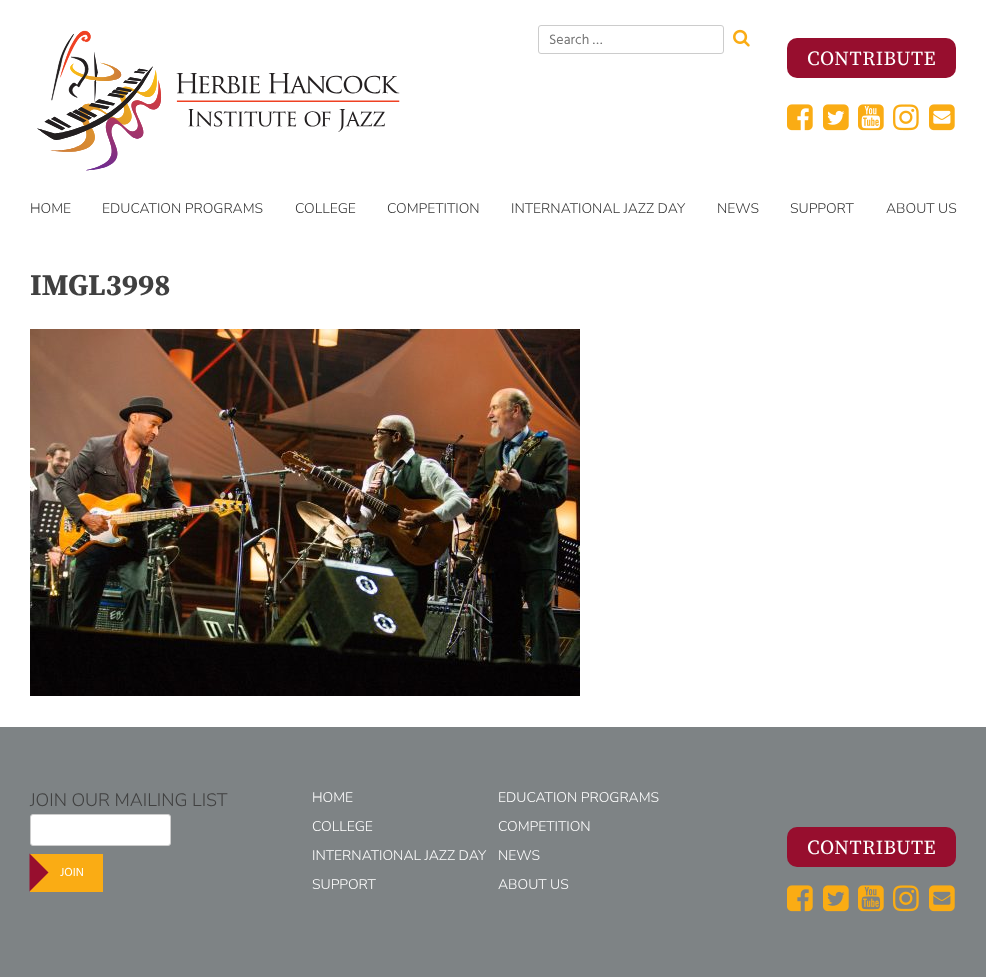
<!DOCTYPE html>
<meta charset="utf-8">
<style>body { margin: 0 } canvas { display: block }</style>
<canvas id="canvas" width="986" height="977"></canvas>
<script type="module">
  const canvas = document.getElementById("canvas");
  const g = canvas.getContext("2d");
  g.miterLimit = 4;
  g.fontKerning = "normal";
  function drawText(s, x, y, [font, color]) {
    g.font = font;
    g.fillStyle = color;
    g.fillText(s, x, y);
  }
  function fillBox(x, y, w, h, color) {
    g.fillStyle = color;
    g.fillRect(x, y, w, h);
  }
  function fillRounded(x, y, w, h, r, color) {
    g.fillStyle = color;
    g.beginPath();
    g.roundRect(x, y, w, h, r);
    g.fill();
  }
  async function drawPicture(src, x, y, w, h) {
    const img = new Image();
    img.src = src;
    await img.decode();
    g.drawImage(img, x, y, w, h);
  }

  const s1 = ["14px Hind Siliguri", "#757575"];
  const s2 = ["20px Source Serif Pro", "#FFFFFF"];
  const s3 = ["300 14px Nunito Sans", "#343434"];
  const s4 = ["bold 30px Source Serif Pro", "#404040"];
  const s5 = ["300 18px Nunito Sans", "#404040"];
  const s6 = ["12px Hind Siliguri", "#FFFFFF"];
  const s7 = ["300 14px Nunito Sans", "#FFFFFF"];

  fillBox(0, 0, 986, 977, "#FFFFFF");
  await drawPicture("pic1.png", 37, 30, 363, 141);
  g.beginPath();
  g.roundRect(538.5, 25.5, 185, 28, 2.5);
  g.strokeStyle = "#CCCCCC";
  g.stroke();
  drawText("Search …", 549, 44, s1);
  await drawPicture("pic2.png", 733, 29, 17, 18);
  fillRounded(787, 38, 169, 40, 10, "#970E2E");
  g.letterSpacing = "0.5px";
  drawText("CONTRIBUTE", 807, 65, s2);
  await drawPicture("pic3.png", 787, 104, 26, 27);
  await drawPicture("pic4.png", 823, 104, 26, 27);
  await drawPicture("pic5.png", 858, 104, 26, 27);
  await drawPicture("pic6.png", 893, 104, 26, 27);
  await drawPicture("pic7.png", 929, 104, 26, 27);
  g.letterSpacing = "0px";
  drawText("HOME", 30, 213, s3);
  drawText("EDUCATION PROGRAMS", 102, 213, s3);
  drawText("COLLEGE", 295, 213, s3);
  drawText("COMPETITION", 387, 213, s3);
  drawText("INTERNATIONAL JAZZ DAY", 511, 213, s3);
  drawText("NEWS", 717, 213, s3);
  drawText("SUPPORT", 790, 213, s3);
  drawText("ABOUT US", 886, 213, s3);
  drawText("IMGL3998", 30, 295, s4);
  await drawPicture("pic8.png", 30, 329, 550, 367);
  fillBox(0, 727, 986, 250, "#7E8385");
  drawText("JOIN OUR MAILING LIST", 30, 806, s5);
  g.fillStyle = "#FFFFFF";
  g.beginPath();
  g.roundRect(30.5, 814.5, 140, 31, 2.5);
  g.fill();
  g.stroke();
  fillBox(30, 854, 73, 38, "#FAAC14");
  g.fillStyle = "#970E2E";
  g.beginPath();
  g.moveTo(29.5, 853.5);
  g.lineTo(29.5, 891.5);
  g.lineTo(48.5, 872.5);
  g.closePath();
  g.fill();
  drawText("JOIN", 60, 876, s6);
  drawText("HOME", 312, 802, s7);
  drawText("EDUCATION PROGRAMS", 498, 802, s7);
  drawText("COLLEGE", 312, 831, s7);
  drawText("COMPETITION", 498, 831, s7);
  drawText("INTERNATIONAL JAZZ DAY", 312, 860, s7);
  drawText("NEWS", 498, 860, s7);
  drawText("SUPPORT", 312, 889, s7);
  drawText("ABOUT US", 498, 889, s7);
  fillRounded(787, 827, 169, 40, 10, "#970E2E");
  g.letterSpacing = "0.5px";
  drawText("CONTRIBUTE", 807, 854, s2);
  await drawPicture("pic9.png", 787, 885, 26, 27);
  await drawPicture("pic10.png", 823, 885, 26, 27);
  await drawPicture("pic11.png", 858, 885, 26, 27);
  await drawPicture("pic12.png", 893, 885, 26, 27);
  await drawPicture("pic13.png", 929, 885, 26, 27);
</script>
